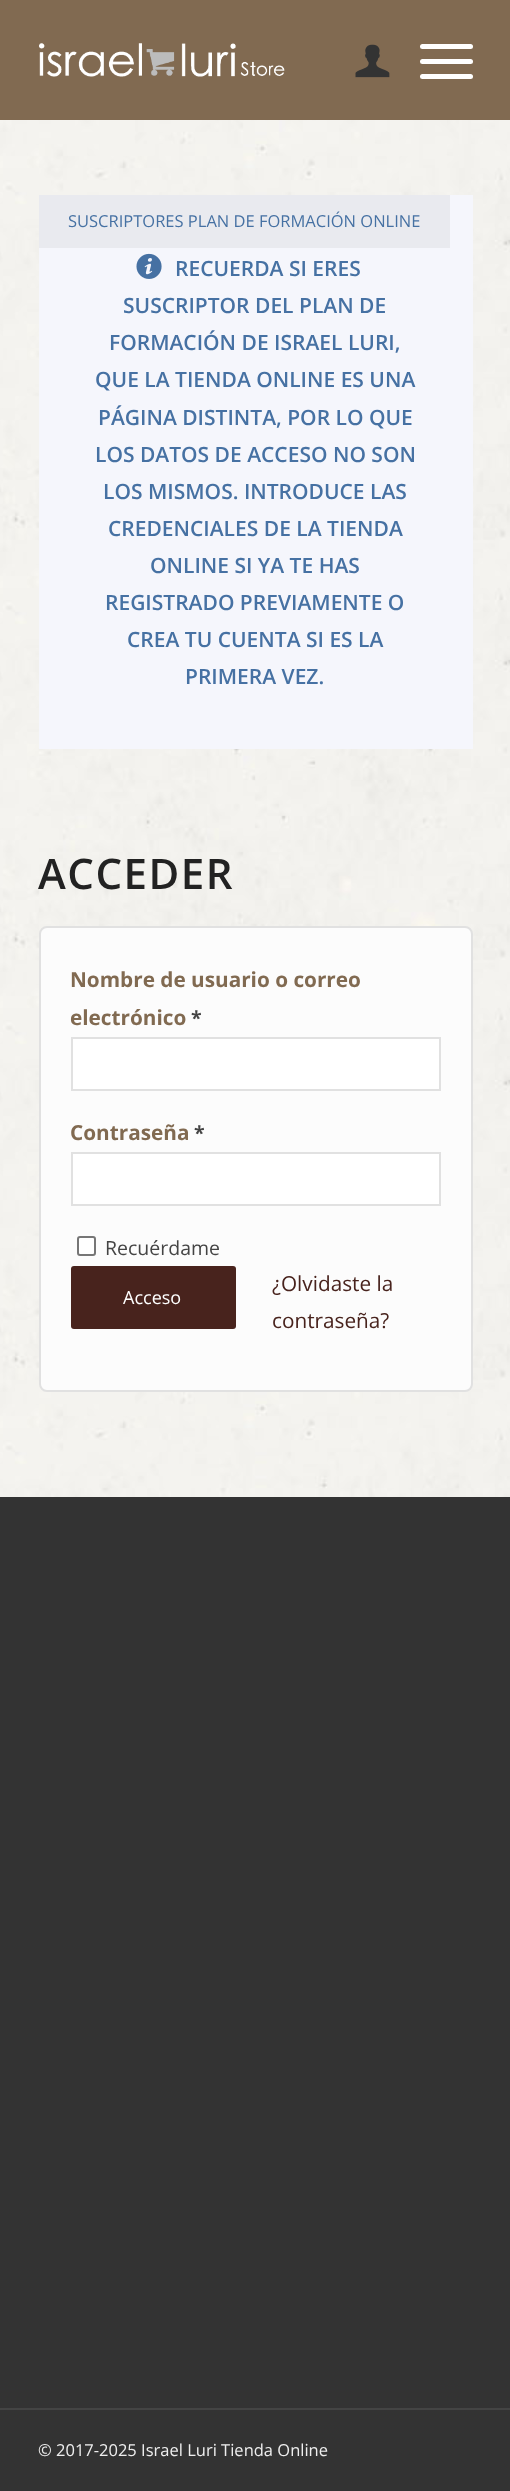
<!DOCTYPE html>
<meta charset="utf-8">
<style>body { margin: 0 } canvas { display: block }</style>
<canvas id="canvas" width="510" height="2491"></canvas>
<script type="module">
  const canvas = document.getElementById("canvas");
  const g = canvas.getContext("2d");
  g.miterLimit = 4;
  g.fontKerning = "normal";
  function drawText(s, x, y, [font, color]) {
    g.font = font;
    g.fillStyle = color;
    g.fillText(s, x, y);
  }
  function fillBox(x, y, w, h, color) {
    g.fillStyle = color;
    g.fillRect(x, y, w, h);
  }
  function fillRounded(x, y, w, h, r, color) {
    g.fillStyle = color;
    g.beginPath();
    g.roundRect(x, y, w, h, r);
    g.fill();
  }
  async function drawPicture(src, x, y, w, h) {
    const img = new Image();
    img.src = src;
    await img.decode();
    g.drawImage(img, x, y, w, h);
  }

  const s1 = ["16.5px Open Sans", "#4671A3"];
  const s2 = ["600 21px Open Sans", "#4671A3"];
  const s3 = ["600 42px Open Sans", "#222222"];
  const s4 = ["bold 20.75px Open Sans", "#816A51"];
  const s5 = ["bold 19.5px Open Sans", "#444444"];
  const s6 = ["19.5px Open Sans", "#444444"];
  const s7 = ["18px Open Sans", "#FFFFFF"];
  const s8 = ["20.75px Open Sans", "#48231D"];
  const s9 = ["16.5px Open Sans", "#EEEEEE"];

  fillBox(0, 0, 510, 2491, "#333333");
  fillBox(0, 0, 510, 120, "#816A51");
  await drawPicture("pic1.png", 39, 43, 246, 34);
  await drawPicture("pic2.png", 355, 44, 35, 34);
  fillRounded(420, 59, 53, 5, 2.5, "#FFFFFF");
  fillRounded(420, 44, 53, 5, 2.5, "#FFFFFF");
  fillRounded(420, 74, 53, 5, 2.5, "#FFFFFF");
  await drawPicture("pic3.png", 0, 120, 510, 1377);
  fillBox(39, 195, 434, 554, "#F5F6FC");
  fillBox(39, 195, 411, 53, "#E9EAEF");
  drawText("SUSCRIPTORES PLAN DE FORMACIÓN ONLINE", 68, 227, s1);
  await drawPicture("pic4.png", 136, 253, 26, 26);
  drawText("RECUERDA SI ERES", 175, 276, s2);
  drawText("SUSCRIPTOR DEL PLAN DE", 123, 313, s2);
  drawText("FORMACIÓN DE ISRAEL LURI,", 109, 350, s2);
  drawText("QUE LA TIENDA ONLINE ES UNA", 95, 387, s2);
  drawText("PÁGINA DISTINTA, POR LO QUE", 98, 425, s2);
  drawText("LOS DATOS DE ACCESO NO SON", 95, 462, s2);
  drawText("LOS MISMOS. INTRODUCE LAS", 103, 499, s2);
  drawText("CREDENCIALES DE LA TIENDA", 108, 536, s2);
  drawText("ONLINE SI YA TE HAS", 150, 573, s2);
  drawText("REGISTRADO PREVIAMENTE O", 105, 610, s2);
  drawText("CREA TU CUENTA SI ES LA", 127, 647, s2);
  drawText("PRIMERA VEZ.", 185, 684, s2);
  g.letterSpacing = "1.5px";
  drawText("ACCEDER", 38, 889, s3);
  g.fillStyle = "#FCFCFC";
  g.beginPath();
  g.roundRect(40, 927, 432, 464, 7);
  g.fill();
  g.strokeStyle = "#E1E1E1";
  g.lineWidth = 2;
  g.stroke();
  g.letterSpacing = "0px";
  drawText("Nombre de usuario o correo", 70, 987, s4);
  drawText("electrónico", 70, 1025, s4);
  drawText("*", 191, 1025, s5);
  g.fillStyle = "#FFFFFF";
  g.beginPath();
  g.rect(72, 1038, 368, 52);
  g.fill();
  g.stroke();
  drawText("Contraseña", 70, 1140, s4);
  drawText("*", 194, 1140, s5);
  g.fillStyle = "#FFFFFF";
  g.beginPath();
  g.rect(72, 1153, 368, 52);
  g.fill();
  g.stroke();
  g.beginPath();
  g.roundRect(78, 1237, 17, 18, 2);
  g.fill();
  g.strokeStyle = "#767676";
  g.stroke();
  drawText("Recuérdame", 105, 1255, s6);
  fillRounded(71, 1266, 165, 63, 3, "#48231D");
  drawText("Acceso", 123, 1304, s7);
  drawText("¿Olvidaste la", 272, 1291, s8);
  drawText("contraseña?", 272, 1328, s8);
  fillBox(0, 2408, 510, 2, "#444444");
  drawText("© 2017-2025 Israel Luri Tienda Online", 38, 2456, s9);
</script>
